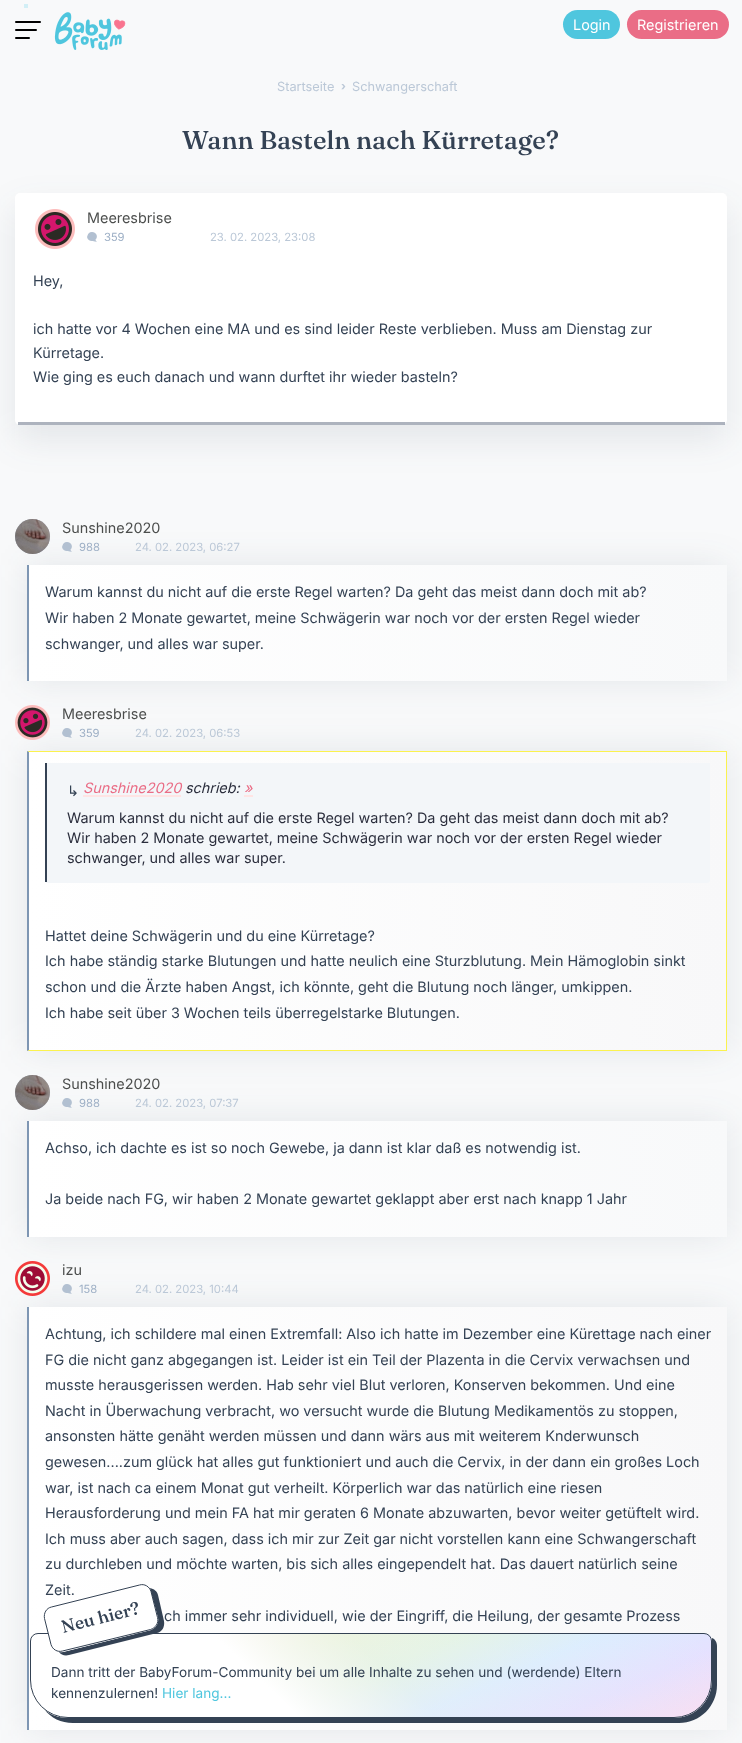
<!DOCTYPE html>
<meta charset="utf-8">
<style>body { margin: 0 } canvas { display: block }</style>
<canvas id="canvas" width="742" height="1743"></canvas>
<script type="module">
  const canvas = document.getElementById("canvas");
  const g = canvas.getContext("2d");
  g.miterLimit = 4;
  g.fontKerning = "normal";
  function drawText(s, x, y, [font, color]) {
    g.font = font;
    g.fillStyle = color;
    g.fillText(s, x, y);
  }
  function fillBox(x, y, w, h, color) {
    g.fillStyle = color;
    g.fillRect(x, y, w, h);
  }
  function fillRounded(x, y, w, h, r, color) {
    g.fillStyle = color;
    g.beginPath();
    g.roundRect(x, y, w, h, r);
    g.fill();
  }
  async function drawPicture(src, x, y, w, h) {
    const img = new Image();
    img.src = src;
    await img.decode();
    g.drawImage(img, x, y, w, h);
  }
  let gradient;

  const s1 = ["14.4px Inter", "#FFFFFF"];
  const s2 = ["14.4px Inter", "#344254"];
  const s3 = ["13.6px Inter", "#344254"];
  const s4 = ["13.6px Inter", "#4FC6DE"];
  const s5 = ["12.75px Inter", "#BBC8D7"];
  const s6 = ["bold 11.25px Inter", "#BBC8D7"];
  const s7 = ["500 25.6px Fraunces", "#344254"];
  const s8 = ["14.4px Inter", "#4C4E4D"];
  const s9 = ["11.25px Inter", "#9EB0C6"];
  const s10 = ["11.25px Inter", "#BBC8D7"];
  const s11 = ["14.4px DejaVu Sans", "#344254"];
  const s12 = ["italic 14.4px Inter", "#EA6D86"];
  const s13 = ["italic 14.4px Inter", "#2B2E3D"];
  const s14 = ["14.4px Inter", "#2B2E3D"];

  fillBox(0, 0, 742, 1743, "#F8F9FA");
  fillRounded(15, 21, 26, 2, 1, "#000000");
  fillRounded(15, 29, 22, 2, 1, "#000000");
  fillRounded(15, 37, 15, 2, 1, "#000000");
  await drawPicture("pic1.png", 54, 12, 72, 38);
  fillBox(24, 4, 4, 4, "#D2EFF6");
  g.fillStyle = "rgba(50, 66, 93, 0.1)";
  g.filter = "blur(17.5px)";
  g.beginPath();
  g.rect(27, 1307, 700, 423);
  g.fill();
  g.filter = "none";
  gradient = g.createLinearGradient(727, 1519, 29, 1519);
  gradient.addColorStop(0, "#F8F8F9");
  gradient.addColorStop(1, "#FFFFFF");
  g.fillStyle = gradient;
  g.fillRect(29, 1307, 698, 423);
  g.fillStyle = "#344254";
  g.beginPath();
  g.moveTo(44, 1709);
  g.bezierCurveTo(51, 1718, 61, 1723, 73, 1723);
  g.lineTo(679, 1723);
  g.bezierCurveTo(700, 1723, 717, 1706, 717, 1685);
  g.lineTo(717, 1646);
  g.bezierCurveTo(717, 1642, 715, 1639, 712, 1638);
  g.lineTo(712, 1641);
  g.lineTo(712, 1680);
  g.bezierCurveTo(712, 1701, 695, 1718, 674, 1718);
  g.lineTo(68, 1718);
  g.bezierCurveTo(59, 1718, 50, 1715, 44, 1709);
  g.closePath();
  g.fill();
  g.save();
  g.beginPath();
  g.roundRect(30, 1633, 682, 85, [8, 8, 38, 38]);
  g.clip();
  gradient = g.createLinearGradient(443, 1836, 299, 1515);
  gradient.addColorStop(0, "#F9DDF1");
  gradient.addColorStop(0.17, "#E5E1FF");
  gradient.addColorStop(0.34, "#DAEDFF");
  gradient.addColorStop(0.5, "#E2F4E3");
  gradient.addColorStop(0.66, "#EBF5D8");
  gradient.addColorStop(0.82, "#FAF2DA");
  gradient.addColorStop(1, "#FBE5D8");
  g.fillStyle = gradient;
  g.fillRect(31, 1634, 680, 83);
  gradient = g.createLinearGradient(556, 1484, 186, 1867);
  gradient.addColorStop(0, "rgba(242, 242, 242, 0)");
  gradient.addColorStop(0.47, "rgba(242, 242, 242, 0.29)");
  gradient.addColorStop(0.65, "#FFFFFF");
  g.fillStyle = gradient;
  g.fillRect(31, 1634, 680, 83);
  g.restore();
  g.beginPath();
  g.roundRect(30.5, 1633.5, 681, 84, [7.5, 7.5, 37.5, 37.5]);
  g.strokeStyle = "#344254";
  g.stroke();
  fillRounded(563, 10, 57, 29, 14.5, "#4FC6DE");
  drawText("Login", 573, 30, s1);
  fillRounded(627, 10, 102, 29, 14.5, "#EA6D86");
  drawText("Registrieren", 637, 30, s1);
  g.fillStyle = "#344254";
  g.beginPath();
  g.moveTo(59, 1652);
  g.bezierCurveTo(61, 1655, 65, 1656, 69, 1655);
  g.lineTo(157, 1633);
  g.bezierCurveTo(162, 1632, 165, 1627, 164, 1621);
  g.lineTo(158, 1595);
  g.bezierCurveTo(157, 1591, 154, 1589, 150, 1588);
  g.lineTo(151, 1592);
  g.lineTo(158, 1618);
  g.bezierCurveTo(159, 1623, 156, 1628, 151, 1630);
  g.lineTo(63, 1652);
  g.closePath();
  g.fill();
  drawText("Zeit.", 45, 1595, s2);
  g.fillStyle = "#FFFFFF";
  g.beginPath();
  g.moveTo(51, 1606);
  g.lineTo(139, 1584);
  g.bezierCurveTo(145, 1583, 150, 1586, 151, 1592);
  g.lineTo(158, 1618);
  g.bezierCurveTo(159, 1623, 156, 1628, 151, 1630);
  g.lineTo(63, 1652);
  g.bezierCurveTo(57, 1653, 52, 1650, 51, 1644);
  g.lineTo(44, 1618);
  g.bezierCurveTo(43, 1613, 46, 1608, 51, 1606);
  g.closePath();
  g.fill();
  g.beginPath();
  g.moveTo(51.5, 1607);
  g.lineTo(139.5, 1585);
  g.bezierCurveTo(144.5, 1583.5, 149.5, 1586.5, 151, 1591.5);
  g.lineTo(157.5, 1617.5);
  g.bezierCurveTo(159, 1623, 155.5, 1628, 150.5, 1629.5);
  g.lineTo(62.5, 1651);
  g.bezierCurveTo(57.5, 1652.5, 52.5, 1649.5, 51, 1644.5);
  g.lineTo(44.5, 1618.5);
  g.bezierCurveTo(43.5, 1613, 46.5, 1608, 51.5, 1607);
  g.closePath();
  g.stroke();
  g.font = "500 17.5px Fraunces";
  g.fillStyle = "#344254";
  g.save();
  g.translate(63, 1633);
  g.rotate(-14 * Math.PI / 180);
  g.fillText("Neu hier?", 0, 0);
  g.restore();
  drawText("Dann tritt der BabyForum-Community bei um alle Inhalte zu sehen und (werdende) Eltern", 51, 1677, s3);
  drawText("kennenzulernen!", 51, 1698, s3);
  drawText("Hier lang...", 162, 1698, s4);
  drawText("Startseite", 277, 91, s5);
  drawText("›", 341, 90, s6);
  drawText("Schwangerschaft", 352, 91, s5);
  drawText("Wann Basteln nach Kürretage?", 182, 149, s7);
  g.fillStyle = "rgba(50, 66, 93, 0.1)";
  g.filter = "blur(17.5px)";
  g.beginPath();
  g.roundRect(15, 208, 712, 232, 5);
  g.fill();
  g.filter = "none";
  fillRounded(15, 193, 712, 232, 5, "#FFFFFF");
  fillBox(18, 422, 707, 3, "rgba(50, 66, 93, 0.4)");
  await drawPicture("pic2.png", 35, 209, 40, 40);
  drawText("Meeresbrise", 87, 223, s8);
  await drawPicture("pic3.png", 87, 232, 10, 10);
  drawText("359", 104, 241, s9);
  drawText("23. 02. 2023, 23:08", 210, 241, s10);
  drawText("Hey,", 33, 286, s2);
  drawText("ich hatte vor 4 Wochen eine MA und es sind leider Reste verblieben. Muss am Dienstag zur", 33, 334, s2);
  drawText("Kürretage.", 33, 358, s2);
  drawText("Wie ging es euch danach und wann durftet ihr wieder basteln?", 33, 382, s2);
  g.fillStyle = "rgba(50, 66, 93, 0.1)";
  g.filter = "blur(17.5px)";
  g.beginPath();
  g.rect(27, 565, 700, 116);
  g.fill();
  g.filter = "none";
  g.fillStyle = "#BFCAD9";
  g.beginPath();
  g.arc(32.5, 536.5, 17.5, 0, Math.PI * 2);
  g.fill();
  await drawPicture("pic4.png", 15, 519, 35, 35);
  drawText("Sunshine2020", 62, 533, s8);
  await drawPicture("pic5.png", 62, 542, 10, 10);
  drawText("988", 79, 551, s9);
  drawText("24. 02. 2023, 06:27", 135, 551, s10);
  gradient = g.createLinearGradient(727, 623, 29, 623);
  gradient.addColorStop(0, "#F8F9FA");
  gradient.addColorStop(1, "#FFFFFF");
  g.fillStyle = gradient;
  g.fillRect(29, 565, 698, 116);
  fillBox(27, 565, 2, 116, "#7E96B3");
  drawText("Warum kannst du nicht auf die erste Regel warten? Da geht das meist dann doch mit ab?", 45, 597, s2);
  drawText("Wir haben 2 Monate gewartet, meine Schwägerin war noch vor der ersten Regel wieder", 45, 623, s2);
  drawText("schwanger, und alles war super.", 45, 649, s2);
  g.fillStyle = "rgba(50, 66, 93, 0.1)";
  g.filter = "blur(17.5px)";
  g.beginPath();
  g.rect(27, 751, 700, 300);
  g.fill();
  g.filter = "none";
  await drawPicture("pic6.png", 15, 705, 35, 35);
  drawText("Meeresbrise", 62, 719, s8);
  await drawPicture("pic7.png", 62, 728, 10, 10);
  drawText("359", 79, 737, s9);
  drawText("24. 02. 2023, 06:53", 135, 737, s10);
  gradient = g.createLinearGradient(726, 901, 29, 901);
  gradient.addColorStop(0, "#F8F8F9");
  gradient.addColorStop(1, "#FFFFFF");
  g.fillStyle = gradient;
  g.fillRect(29, 752, 697, 298);
  g.fillStyle = "#FBF24F";
  g.beginPath();
  g.moveTo(27, 751);
  g.lineTo(727, 751);
  g.lineTo(726, 752);
  g.lineTo(29, 752);
  g.closePath();
  g.fill();
  fillBox(726, 751, 1, 300, "#FBF24F");
  g.beginPath();
  g.moveTo(727, 1051);
  g.lineTo(27, 1051);
  g.lineTo(29, 1050);
  g.lineTo(726, 1050);
  g.closePath();
  g.fill();
  g.fillStyle = "#7E96B3";
  g.beginPath();
  g.moveTo(27, 1051);
  g.lineTo(27, 751);
  g.lineTo(29, 752);
  g.lineTo(29, 1050);
  g.closePath();
  g.fill();
  g.fillStyle = "#F3F6F9";
  g.beginPath();
  g.roundRect(45, 763, 665, 120, [0, 0, 3, 3]);
  g.fill();
  fillBox(45, 763, 2, 119, "#344254");
  drawText("↳", 67, 796, s11);
  drawText("Sunshine2020", 83, 793, s12);
  fillBox(83, 795, 98, 2, "#FFE4E4");
  drawText("schrieb:", 185, 793, s13);
  drawText("»", 244, 793, s12);
  fillBox(244, 795, 9, 2, "#FFE4E4");
  drawText("Warum kannst du nicht auf die erste Regel warten? Da geht das meist dann doch mit ab?", 67, 823, s14);
  drawText("Wir haben 2 Monate gewartet, meine Schwägerin war noch vor der ersten Regel wieder", 67, 843, s14);
  drawText("schwanger, und alles war super.", 67, 863, s14);
  drawText("Hattet deine Schwägerin und du eine Kürretage?", 45, 941, s2);
  drawText("Ich habe ständig starke Blutungen und hatte neulich eine Sturzblutung. Mein Hämoglobin sinkt", 45, 966, s2);
  drawText("schon und die Ärzte haben Angst, ich könnte, geht die Blutung noch länger, umkippen.", 45, 992, s2);
  drawText("Ich habe seit über 3 Wochen teils überregelstarke Blutungen.", 45, 1018, s2);
  g.fillStyle = "rgba(50, 66, 93, 0.1)";
  g.filter = "blur(17.5px)";
  g.beginPath();
  g.rect(27, 1121, 700, 116);
  g.fill();
  g.filter = "none";
  g.fillStyle = "#BFCAD9";
  g.beginPath();
  g.arc(32.5, 1092.5, 17.5, 0, Math.PI * 2);
  g.fill();
  await drawPicture("pic8.png", 15, 1075, 35, 35);
  drawText("Sunshine2020", 62, 1089, s8);
  await drawPicture("pic7.png", 62, 1098, 10, 10);
  drawText("988", 79, 1107, s9);
  drawText("24. 02. 2023, 07:37", 135, 1107, s10);
  gradient = g.createLinearGradient(727, 1179, 29, 1179);
  gradient.addColorStop(0, "#F8F9FA");
  gradient.addColorStop(1, "#FFFFFF");
  g.fillStyle = gradient;
  g.fillRect(29, 1121, 698, 116);
  fillBox(27, 1121, 2, 116, "#7E96B3");
  drawText("Achso, ich dachte es ist so noch Gewebe, ja dann ist klar daß es notwendig ist.", 45, 1153, s2);
  drawText("Ja beide nach FG, wir haben 2 Monate gewartet geklappt aber erst nach knapp 1 Jahr", 45, 1204, s2);
  await drawPicture("pic9.png", 15, 1261, 35, 35);
  drawText("izu", 62, 1275, s8);
  await drawPicture("pic7.png", 62, 1284, 10, 10);
  drawText("158", 79, 1293, s9);
  drawText("24. 02. 2023, 10:44", 135, 1293, s10);
  fillBox(27, 1307, 2, 423, "#7E96B3");
  drawText("Achtung, ich schildere mal einen Extremfall: Also ich hatte im Dezember eine Kürettage nach einer", 45, 1339, s2);
  drawText("FG die nicht ganz abgegangen ist. Leider ist ein Teil der Plazenta in die Cervix verwachsen und", 45, 1365, s2);
  drawText("musste herausgerissen werden. Hab sehr viel Blut verloren, Konserven bekommen. Und eine", 45, 1390, s2);
  drawText("Nacht in Überwachung verbracht, wo versucht wurde die Blutung Medikamentös zu stoppen,", 45, 1416, s2);
  drawText("ansonsten hätte genäht werden müssen und dann wärs aus mit weiterem Knderwunsch", 45, 1441, s2);
  drawText("gewesen....zum glück hat alles gut funktioniert und auch die Cervix, in der dann ein großes Loch", 45, 1467, s2);
  drawText("war, ist nach ca einem Monat gut verheilt. Körperlich war das natürlich eine riesen", 45, 1493, s2);
  drawText("Herausforderung und mein FA hat mir geraten 6 Monate abzuwarten, bevor weiter getüftelt wird.", 45, 1518, s2);
  drawText("Ich muss aber auch sagen, dass ich mir zur Zeit gar nicht vorstellen kann eine Schwangerschaft", 45, 1544, s2);
  drawText("zu durchleben und möchte warten, bis sich alles eingependelt hat. Das dauert natürlich seine", 45, 1569, s2);
  drawText("ch immer sehr individuell, wie der Eingriff, die Heilung, der gesamte Prozess", 164, 1621, s2);
</script>
